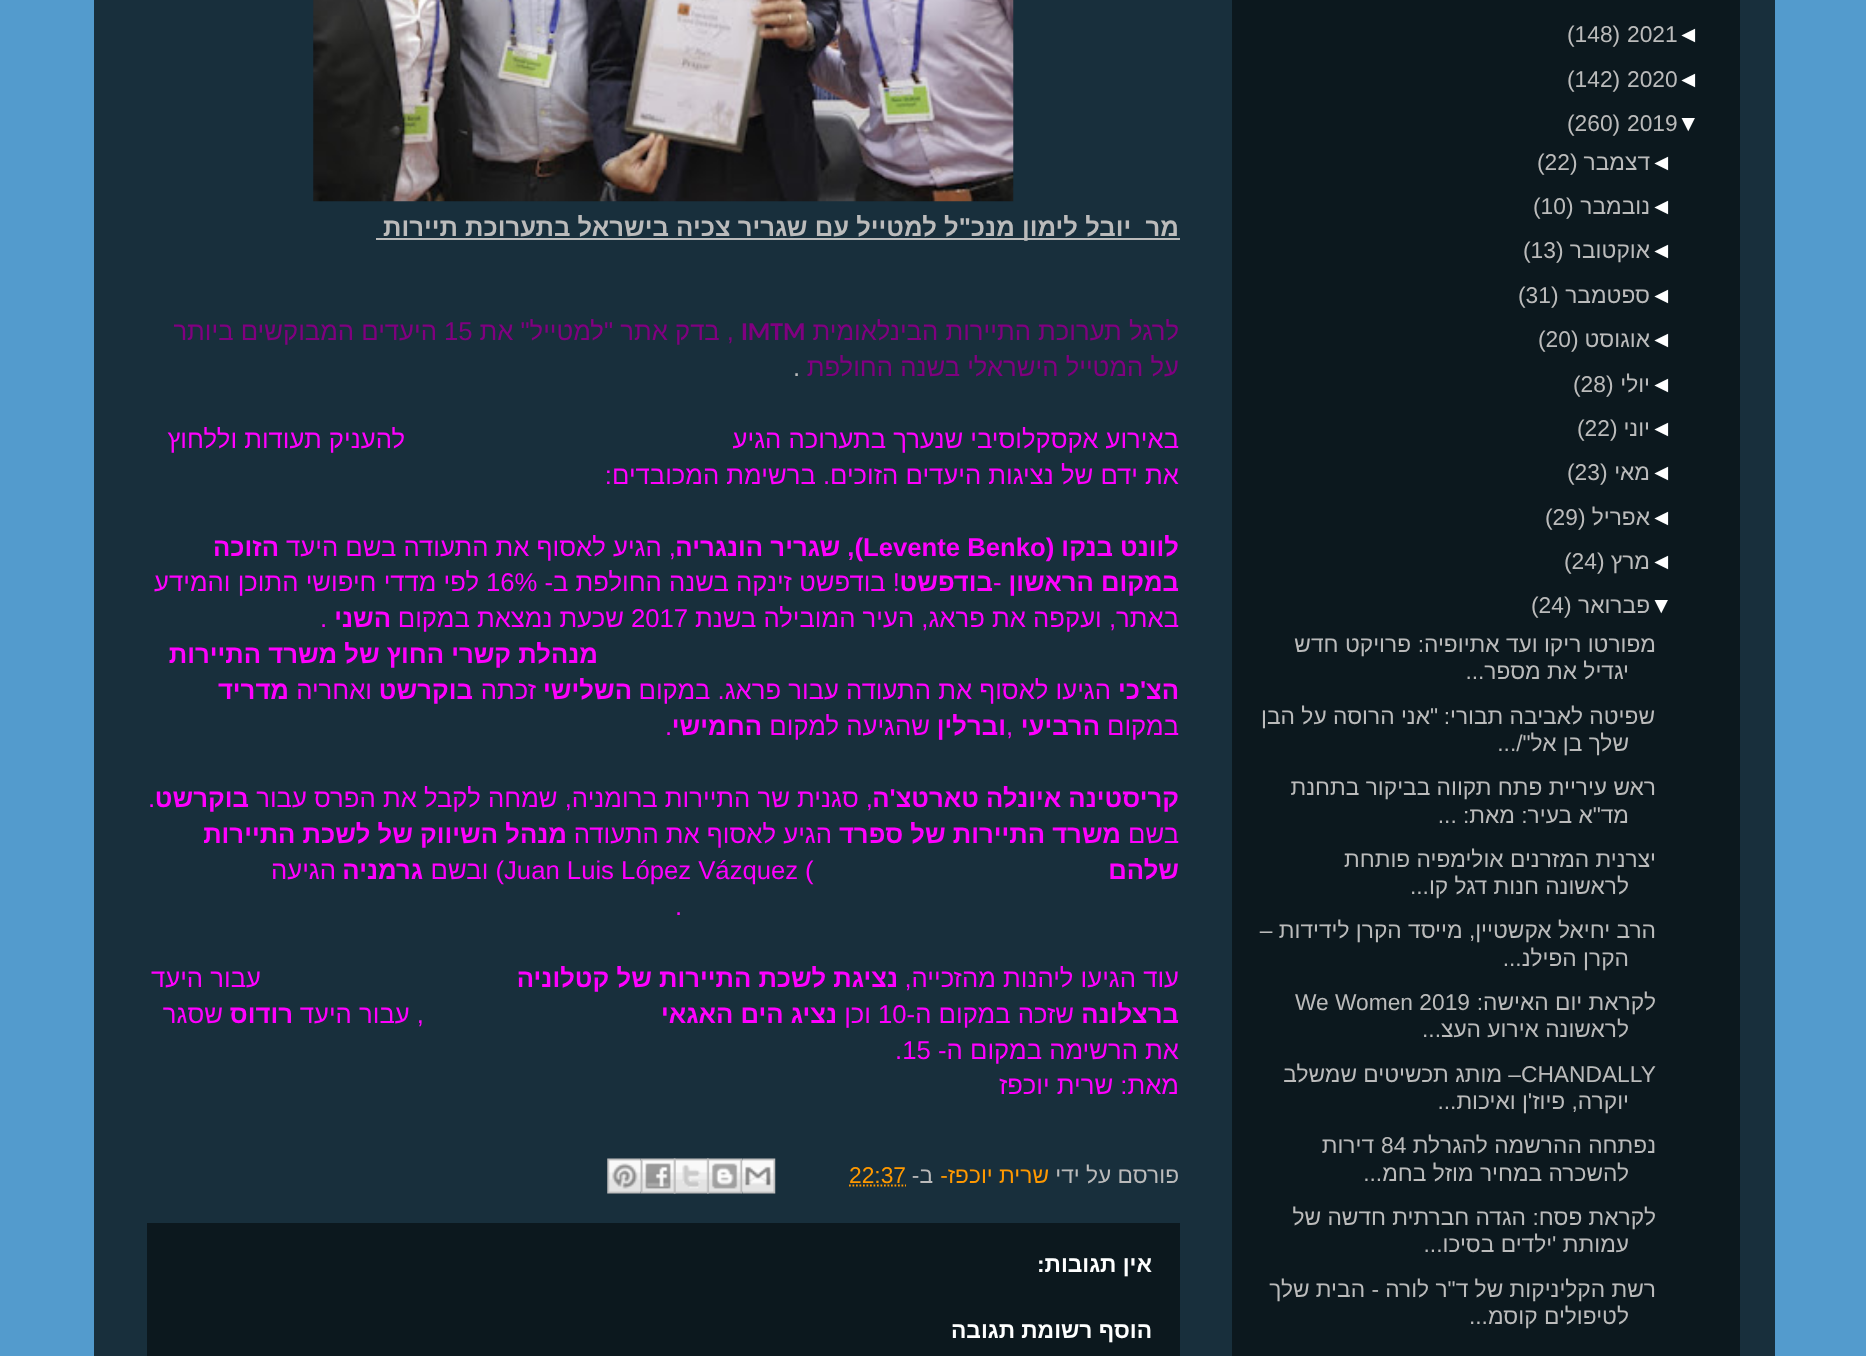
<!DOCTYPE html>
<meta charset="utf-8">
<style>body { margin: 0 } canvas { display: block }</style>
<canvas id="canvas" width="1866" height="1356"></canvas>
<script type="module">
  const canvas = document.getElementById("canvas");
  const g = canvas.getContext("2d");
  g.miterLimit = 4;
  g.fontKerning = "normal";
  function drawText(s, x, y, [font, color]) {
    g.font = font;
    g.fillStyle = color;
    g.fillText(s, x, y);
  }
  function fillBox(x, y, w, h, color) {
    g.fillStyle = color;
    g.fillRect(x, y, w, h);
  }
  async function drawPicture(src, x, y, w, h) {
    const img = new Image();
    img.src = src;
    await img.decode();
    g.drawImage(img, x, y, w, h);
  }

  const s1 = ["22.75px Liberation Sans", "#FFFFFF"];
  const s2 = ["22.75px Liberation Sans", "#BBBBBB"];
  const s3 = ["bold 25.7px Liberation Sans", "#BBBBBB"];
  const s4 = ["25.7px Liberation Sans", "#800080"];
  const s5 = ["bold 25.7px Carlito", "#800080"];
  const s6 = ["25.7px Liberation Sans", "#BBBBBB"];
  const s7 = ["25.7px Liberation Sans", "#FF00FF"];
  const s8 = ["bold 25.7px Liberation Sans", "#FF00FF"];
  const s9 = ["22.75px Liberation Sans", "#FF9900"];
  const s10 = ["bold 22.75px Liberation Sans", "#FFFFFF"];

  fillBox(0, 0, 1866, 1356, "#539BCD");
  fillBox(94, 0, 1681, 1356, "#182F3C");
  fillBox(1232, 0, 508, 1356, "#0C181E");
  drawText("◄", 1677, 42, s1);
  drawText("2021", 1627, 42, s2);
  drawText("(148)", 1567, 42, s2);
  drawText("◄", 1677, 87, s1);
  drawText("2020", 1627, 87, s2);
  drawText("(142)", 1567, 87, s2);
  drawText("▼", 1677, 131, s1);
  drawText("2019", 1627, 131, s2);
  drawText("(260)", 1567, 131, s2);
  drawText("◄", 1650, 170, s1);
  g.direction = "rtl";
  drawText("דצמבר", 1650, 170, s2);
  g.direction = "ltr";
  drawText("(22)", 1537, 170, s2);
  drawText("◄", 1650, 214, s1);
  g.direction = "rtl";
  drawText("נובמבר", 1650, 214, s2);
  g.direction = "ltr";
  drawText("(10)", 1533, 214, s2);
  drawText("◄", 1650, 258, s1);
  g.direction = "rtl";
  drawText("אוקטובר", 1650, 258, s2);
  g.direction = "ltr";
  drawText("(13)", 1523, 258, s2);
  drawText("◄", 1650, 303, s1);
  g.direction = "rtl";
  drawText("ספטמבר", 1650, 303, s2);
  g.direction = "ltr";
  drawText("(31)", 1518, 303, s2);
  drawText("◄", 1650, 347, s1);
  g.direction = "rtl";
  drawText("אוגוסט", 1650, 347, s2);
  g.direction = "ltr";
  drawText("(20)", 1538, 347, s2);
  drawText("◄", 1650, 392, s1);
  g.direction = "rtl";
  drawText("יולי", 1650, 392, s2);
  g.direction = "ltr";
  drawText("(28)", 1573, 392, s2);
  drawText("◄", 1650, 436, s1);
  g.direction = "rtl";
  drawText("יוני", 1650, 436, s2);
  g.direction = "ltr";
  drawText("(22)", 1577, 436, s2);
  drawText("◄", 1650, 480, s1);
  g.direction = "rtl";
  drawText("מאי", 1650, 480, s2);
  g.direction = "ltr";
  drawText("(23)", 1567, 480, s2);
  drawText("◄", 1650, 525, s1);
  g.direction = "rtl";
  drawText("אפריל", 1650, 525, s2);
  g.direction = "ltr";
  drawText("(29)", 1545, 525, s2);
  drawText("◄", 1650, 569, s1);
  g.direction = "rtl";
  drawText("מרץ", 1650, 569, s2);
  g.direction = "ltr";
  drawText("(24)", 1564, 569, s2);
  drawText("▼", 1650, 613, s1);
  g.direction = "rtl";
  drawText("פברואר", 1650, 613, s2);
  g.direction = "ltr";
  drawText("(24)", 1531, 613, s2);
  g.direction = "rtl";
  drawText("מפורטו ריקו ועד אתיופיה:", 1656, 652, s2);
  drawText("פרויקט חדש", 1411, 652, s2);
  drawText("יגדיל את מספר...", 1629, 679, s2);
  drawText("שפיטה לאביבה תבורי:", 1655, 724, s2);
  drawText("\"אני הרוסה על הבן", 1438, 724, s2);
  drawText("שלך בן אל\"/...", 1629, 751, s2);
  drawText("ראש עיריית פתח תקווה בביקור בתחנת", 1656, 795, s2);
  drawText("מד\"א בעיר: מאת: ...", 1629, 823, s2);
  drawText("יצרנית המזרנים אולימפיה פותחת", 1656, 867, s2);
  drawText("לראשונה", 1629, 894, s2);
  drawText("חנות דגל קו...", 1539, 894, s2);
  drawText("הרב יחיאל אקשטיין, מייסד הקרן לידידות –", 1656, 938, s2);
  drawText("הקרן הפילנ...", 1629, 966, s2);
  drawText("לקראת יום האישה:", 1656, 1010, s2);
  g.direction = "ltr";
  drawText("We Women 2019", 1295, 1010, s2);
  g.direction = "rtl";
  drawText("לראשונה אירוע העצ...", 1629, 1037, s2);
  g.direction = "ltr";
  drawText("CHANDALLY", 1521, 1082, s2);
  g.direction = "rtl";
  drawText("– מותג תכשיטים שמשלב", 1521, 1082, s2);
  drawText("יוקרה, פיוז'ן ואיכות...", 1629, 1109, s2);
  drawText("נפתחה ההרשמה להגרלת", 1656, 1153, s2);
  g.direction = "ltr";
  drawText("84", 1381, 1153, s2);
  g.direction = "rtl";
  drawText("דירות", 1374, 1153, s2);
  drawText("להשכרה במחיר מוזל בחמ...", 1629, 1181, s2);
  drawText("לקראת פסח:", 1656, 1225, s2);
  drawText("הגדה חברתית חדשה של", 1526, 1225, s2);
  drawText("עמותת 'ילדים בסיכו...", 1629, 1252, s2);
  drawText("רשת הקליניקות של ד\"ר לורה - הבית שלך", 1656, 1297, s2);
  drawText("לטיפולים קוסמ...", 1629, 1324, s2);
  await drawPicture("pic1.png", 313, 0, 701, 202);
  fillBox(376, 238, 804, 2, "#BBBBBB");
  drawText("מר  יובל לימון מנכ\"ל למטייל עם שגריר צכיה בישראל בתערוכת תיירות", 1179, 236, s3);
  drawText("לרגל תערוכת התיירות הבינלאומית", 1179, 340, s4);
  g.direction = "ltr";
  drawText("IMTM", 741, 340, s5);
  g.direction = "rtl";
  drawText(", בדק אתר \"למטייל\" את", 734, 340, s4);
  g.direction = "ltr";
  drawText("15", 444, 340, s4);
  g.direction = "rtl";
  drawText("היעדים המבוקשים ביותר", 437, 340, s4);
  drawText("על המטייל הישראלי בשנה החולפת", 1179, 376, s4);
  g.direction = "ltr";
  drawText(".", 793, 376, s6);
  g.direction = "rtl";
  drawText("באירוע אקסקלוסיבי שנערך בתערוכה הגיע", 1179, 448, s7);
  drawText("להעניק תעודות וללחוץ", 405, 448, s7);
  drawText("את ידם של נציגות היעדים הזוכים. ברשימת המכובדים:", 1179, 484, s7);
  drawText("לוונט בנקו (", 1179, 556, s8);
  g.direction = "ltr";
  drawText("Levente Benko", 863, 556, s8);
  g.direction = "rtl";
  drawText("), שגריר הונגריה", 863, 556, s8);
  drawText(", הגיע לאסוף את התעודה בשם היעד", 676, 556, s7);
  drawText("הזוכה", 279, 556, s8);
  drawText("במקום הראשון", 1179, 591, s8);
  g.direction = "ltr";
  drawText("-", 993, 591, s7);
  g.direction = "rtl";
  drawText("בודפשט", 993, 591, s8);
  drawText("! בודפשט זינקה בשנה החולפת ב-", 900, 591, s7);
  g.direction = "ltr";
  drawText("16%", 486, 591, s7);
  g.direction = "rtl";
  drawText("לפי מדדי חיפושי התוכן והמידע", 479, 591, s7);
  drawText("באתר, ועקפה את פראג, העיר המובילה בשנת", 1179, 627, s7);
  g.direction = "ltr";
  drawText("2017", 631, 627, s7);
  g.direction = "rtl";
  drawText("שכעת נמצאת במקום", 624, 627, s7);
  drawText("השני", 391, 627, s8);
  g.direction = "ltr";
  drawText(".", 320, 627, s7);
  g.direction = "rtl";
  drawText("מנהלת קשרי החוץ של משרד התיירות", 598, 663, s8);
  drawText("הצ'כי", 1179, 699, s8);
  drawText("הגיעו לאסוף את התעודה עבור פראג. במקום", 1111, 699, s7);
  drawText("השלישי", 632, 699, s8);
  drawText("זכתה", 536, 699, s7);
  drawText("בוקרשט", 473, 699, s8);
  drawText("ואחריה", 372, 699, s7);
  drawText("מדריד", 289, 699, s8);
  drawText("במקום", 1179, 735, s7);
  drawText("הרביעי", 1100, 735, s8);
  g.direction = "ltr";
  drawText(",", 1006, 735, s7);
  g.direction = "rtl";
  drawText("וברלין", 1006, 735, s8);
  drawText("שהגיעה למקום", 930, 735, s7);
  drawText("החמישי", 762, 735, s8);
  g.direction = "ltr";
  drawText(".", 665, 735, s7);
  g.direction = "rtl";
  drawText("קריסטינה איונלה טארטצ'ה", 1179, 807, s8);
  drawText(", סגנית שר התיירות ברומניה, שמחה לקבל את הפרס עבור", 873, 807, s7);
  drawText("בוקרשט", 249, 807, s8);
  g.direction = "ltr";
  drawText(".", 148, 807, s7);
  g.direction = "rtl";
  drawText("בשם", 1179, 843, s7);
  drawText("משרד התיירות של ספרד", 1121, 843, s8);
  drawText("הגיע לאסוף את התעודה", 832, 843, s7);
  drawText("מנהל השיווק של לשכת התיירות", 567, 843, s8);
  drawText("שלהם", 1179, 879, s8);
  g.direction = "ltr";
  drawText("(", 805, 879, s7);
  drawText("Juan Luis López Vázquez", 504, 879, s7);
  g.direction = "rtl";
  drawText(") ובשם", 504, 879, s7);
  drawText("גרמניה", 423, 879, s8);
  drawText("הגיעה", 336, 879, s7);
  g.direction = "ltr";
  drawText(".", 675, 915, s7);
  g.direction = "rtl";
  drawText("עוד הגיעו ליהנות מהזכייה,", 1179, 987, s7);
  drawText("נציגת לשכת התיירות של קטלוניה", 898, 987, s8);
  drawText("עבור היעד", 261, 987, s7);
  drawText("ברצלונה", 1179, 1023, s8);
  drawText("שזכה במקום ה-", 1074, 1023, s7);
  g.direction = "ltr";
  drawText("10", 878, 1023, s7);
  g.direction = "rtl";
  drawText("וכן", 871, 1023, s7);
  drawText("נציג הים האגאי", 837, 1023, s8);
  drawText(", עבור היעד", 424, 1023, s7);
  drawText("רודוס", 293, 1023, s8);
  drawText("שסגר", 223, 1023, s7);
  drawText("את הרשימה במקום ה-", 1179, 1059, s7);
  g.direction = "ltr";
  drawText(".15", 895, 1059, s7);
  g.direction = "rtl";
  drawText("מאת: שרית יוכפז", 1179, 1094, s7);
  drawText("פורסם על ידי", 1179, 1183, s2);
  drawText("שרית יוכפז-", 1049, 1183, s9);
  drawText("ב-", 933, 1183, s2);
  g.direction = "ltr";
  drawText("22:37", 849, 1183, s9);
  g.beginPath();
  g.moveTo(849, 1185.5);
  g.lineTo(906, 1185.5);
  g.strokeStyle = "#FF9900";
  g.lineWidth = 1.8;
  g.setLineDash([1.75, 1.75]);
  g.stroke();
  await drawPicture("pic2.png", 741, 1158, 35, 36);
  await drawPicture("pic3.png", 707, 1158, 35, 36);
  await drawPicture("pic4.png", 673, 1158, 36, 36);
  await drawPicture("pic5.png", 640, 1158, 36, 36);
  await drawPicture("pic6.png", 607, 1158, 36, 36);
  fillBox(147, 1223, 1033, 133, "#0C181E");
  g.direction = "rtl";
  drawText("אין תגובות:", 1152, 1272, s10);
  drawText("הוסף רשומת תגובה", 1152, 1338, s10);
</script>
